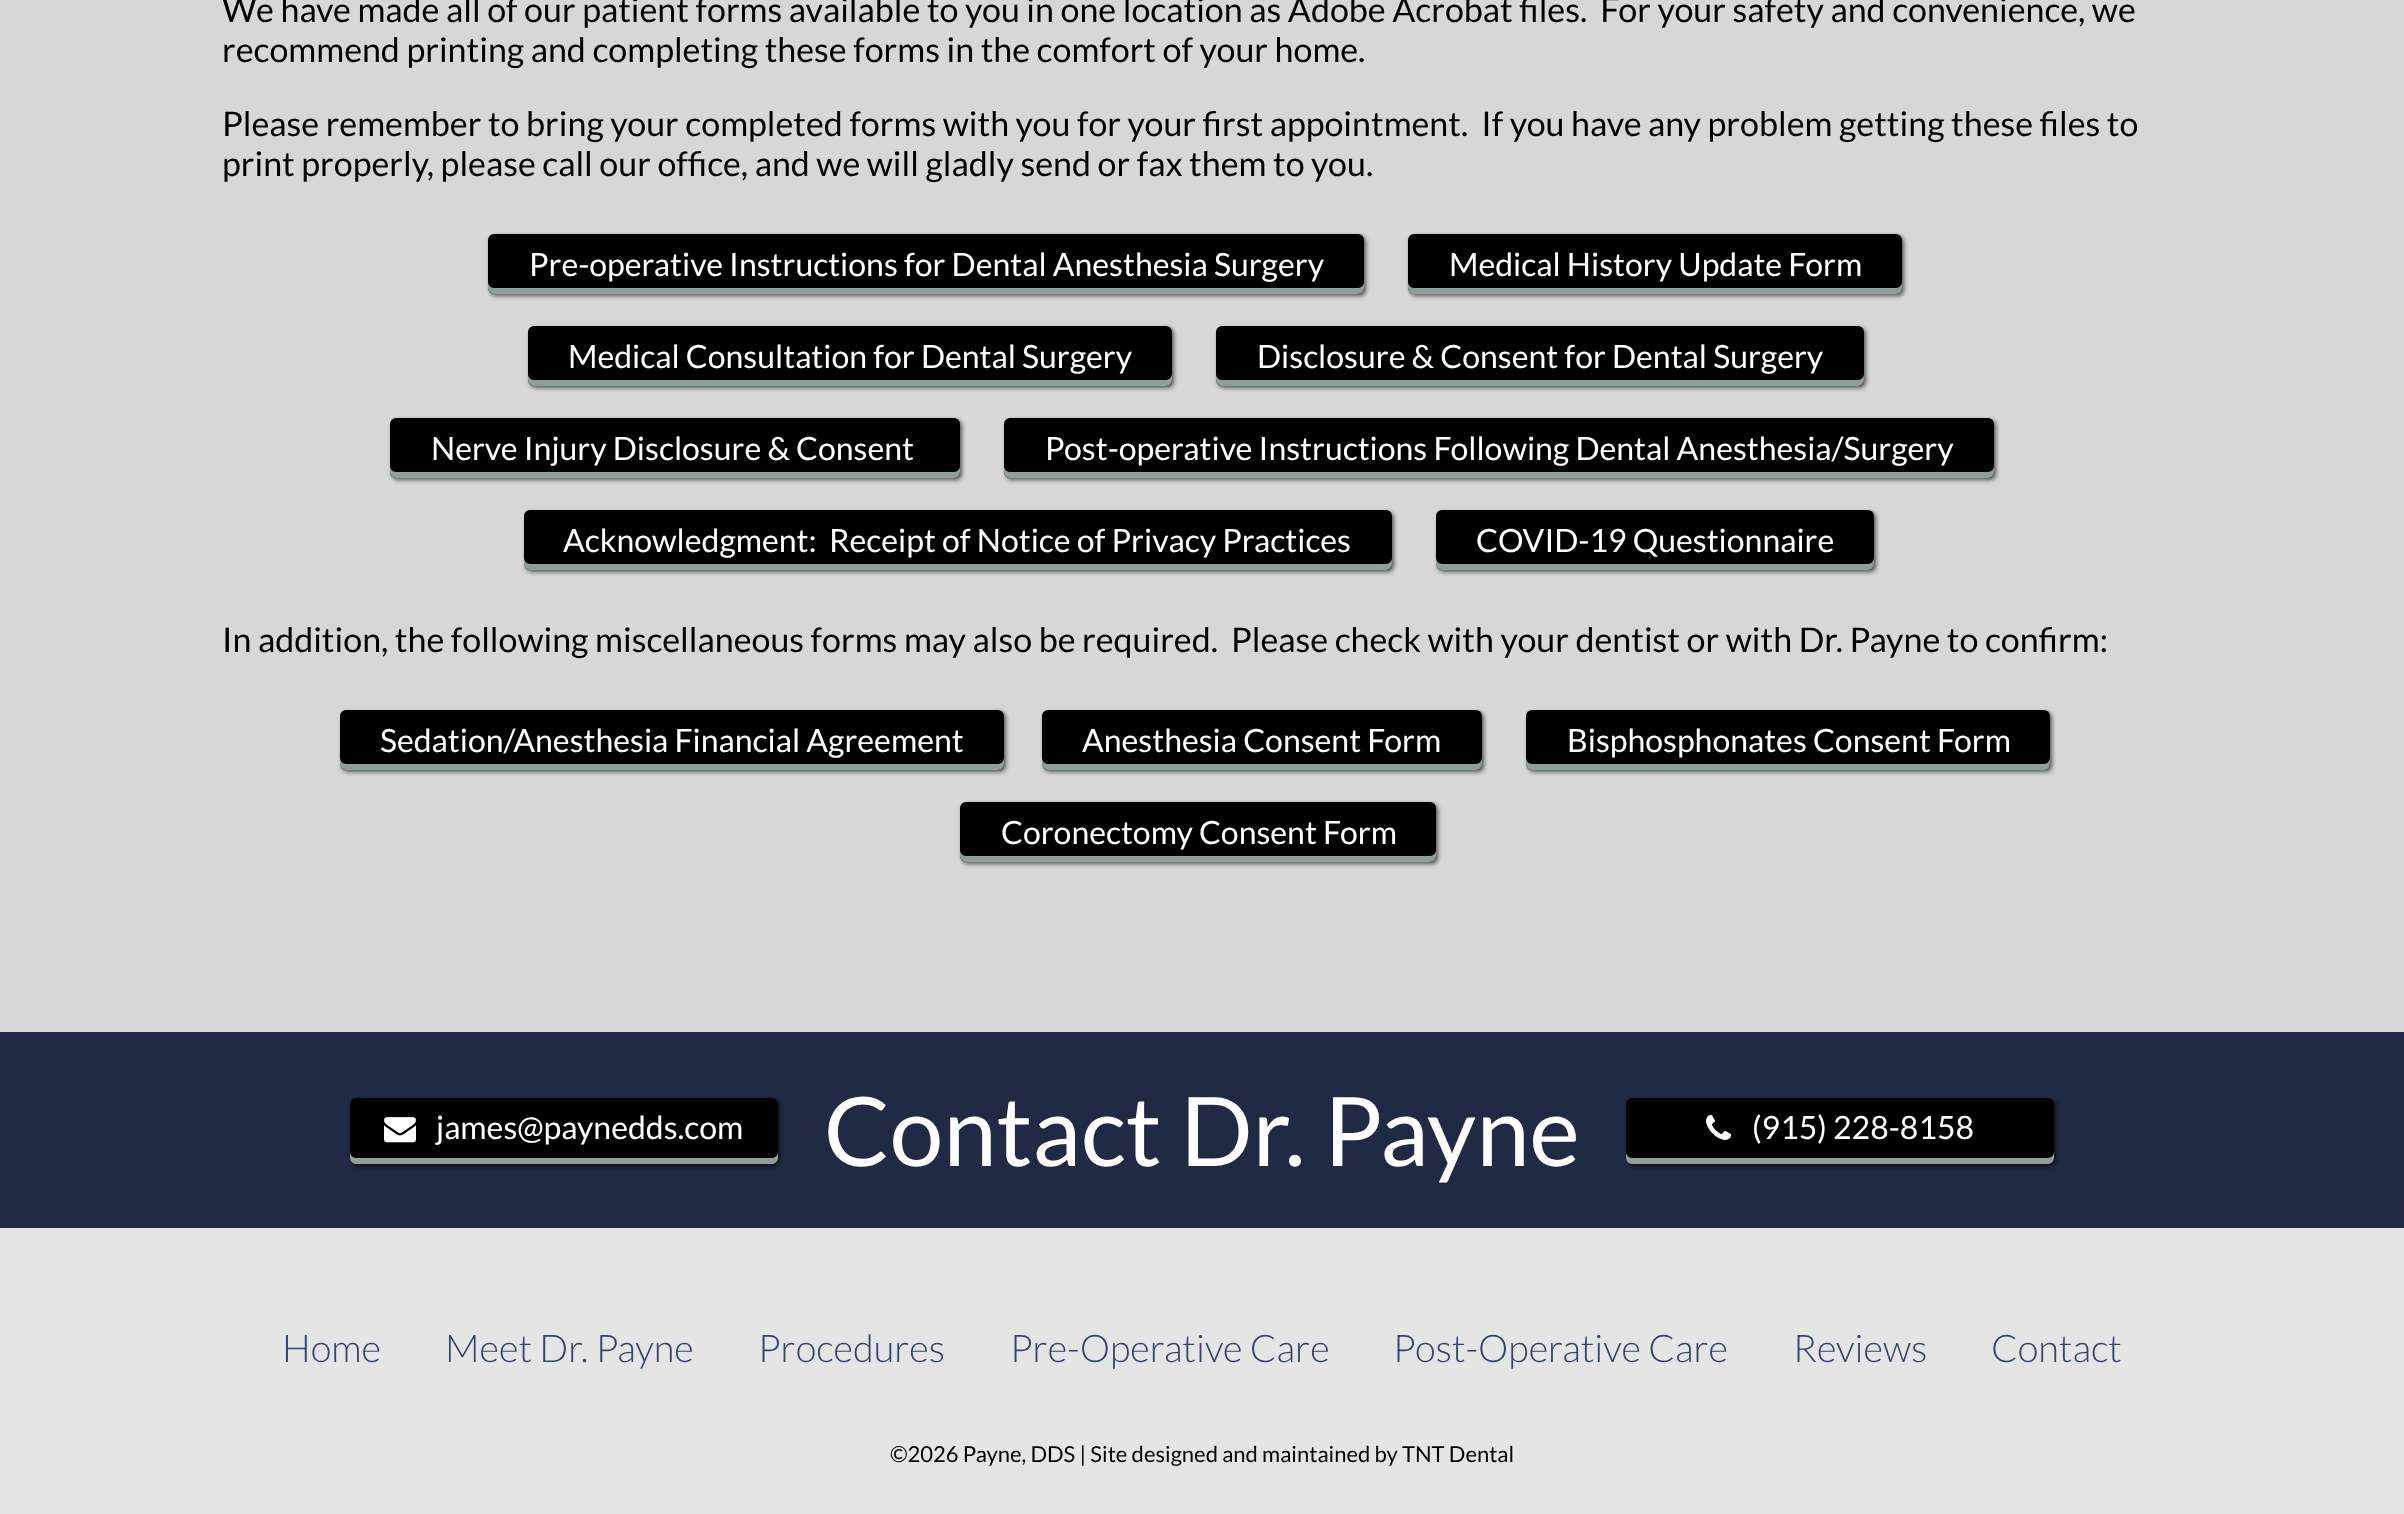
<!DOCTYPE html>
<meta charset="utf-8">
<style>body { margin: 0 } canvas { display: block }</style>
<canvas id="canvas" width="2404" height="1514"></canvas>
<script type="module">
  const canvas = document.getElementById("canvas");
  const g = canvas.getContext("2d");
  g.miterLimit = 4;
  g.fontKerning = "normal";
  function drawText(s, x, y, [font, color]) {
    g.font = font;
    g.fillStyle = color;
    g.fillText(s, x, y);
  }
  function fillBox(x, y, w, h, color) {
    g.fillStyle = color;
    g.fillRect(x, y, w, h);
  }
  function fillRounded(x, y, w, h, r, color) {
    g.fillStyle = color;
    g.beginPath();
    g.roundRect(x, y, w, h, r);
    g.fill();
  }
  async function drawPicture(src, x, y, w, h) {
    const img = new Image();
    img.src = src;
    await img.decode();
    g.drawImage(img, x, y, w, h);
  }

  const s1 = ["34px Lato", "#000000"];
  const s2 = ["32px Lato", "#FFFFFF"];
  const s3 = ["96px Lato", "#FFFFFF"];
  const s4 = ["300 38px Lato", "#33446F"];
  const s5 = ["22px Lato", "#000000"];

  fillBox(0, 0, 2404, 1514, "#D7D7D7");
  drawText("We have made all of our patient forms available to you in one location as Adobe Acrobat files.  For your safety and convenience, we", 222, 22, s1);
  drawText("recommend printing and completing these forms in the comfort of your home.", 222, 62, s1);
  drawText("Please remember to bring your completed forms with you for your first appointment.  If you have any problem getting these files to", 222, 136, s1);
  drawText("print properly, please call our office, and we will gladly send or fax them to you.", 222, 176, s1);
  g.fillStyle = "rgba(0, 0, 0, 0.6)";
  g.filter = "blur(2px)";
  g.beginPath();
  g.roundRect(490, 236, 876, 60, 6);
  g.fill();
  g.filter = "none";
  fillRounded(488, 234, 876, 60, 6, "#000000");
  g.fillStyle = "#909D9D";
  g.beginPath();
  g.moveTo(488, 282);
  g.lineTo(488, 288);
  g.bezierCurveTo(488, 291, 491, 294, 494, 294);
  g.lineTo(1358, 294);
  g.bezierCurveTo(1361, 294, 1364, 291, 1364, 288);
  g.lineTo(1364, 282);
  g.bezierCurveTo(1364, 285, 1361, 288, 1358, 288);
  g.lineTo(494, 288);
  g.bezierCurveTo(491, 288, 488, 285, 488, 282);
  g.closePath();
  g.fill();
  drawText("Pre-operative Instructions for Dental Anesthesia Surgery", 529, 276, s2);
  g.fillStyle = "rgba(0, 0, 0, 0.6)";
  g.filter = "blur(2px)";
  g.beginPath();
  g.roundRect(1410, 236, 494, 60, 6);
  g.fill();
  g.filter = "none";
  fillRounded(1408, 234, 494, 60, 6, "#000000");
  g.fillStyle = "#909D9D";
  g.beginPath();
  g.moveTo(1408, 282);
  g.bezierCurveTo(1408, 287, 1407, 294, 1414, 294);
  g.lineTo(1896, 294);
  g.bezierCurveTo(1903, 294, 1902, 287, 1902, 282);
  g.bezierCurveTo(1902, 285, 1899, 288, 1896, 288);
  g.lineTo(1414, 288);
  g.bezierCurveTo(1411, 288, 1408, 285, 1408, 282);
  g.closePath();
  g.fill();
  drawText("Medical History Update Form", 1449, 276, s2);
  g.fillStyle = "rgba(0, 0, 0, 0.6)";
  g.filter = "blur(2px)";
  g.beginPath();
  g.roundRect(530, 328, 644, 60, 6);
  g.fill();
  g.filter = "none";
  fillRounded(528, 326, 644, 60, 6, "#000000");
  g.fillStyle = "#909D9D";
  g.beginPath();
  g.moveTo(528, 374);
  g.lineTo(528, 380);
  g.bezierCurveTo(528, 383, 531, 386, 534, 386);
  g.lineTo(1166, 386);
  g.bezierCurveTo(1169, 386, 1172, 383, 1172, 380);
  g.lineTo(1172, 374);
  g.bezierCurveTo(1172, 377, 1169, 380, 1166, 380);
  g.lineTo(534, 380);
  g.bezierCurveTo(531, 380, 528, 377, 528, 374);
  g.closePath();
  g.fill();
  drawText("Medical Consultation for Dental Surgery", 568, 368, s2);
  g.fillStyle = "rgba(0, 0, 0, 0.6)";
  g.filter = "blur(2px)";
  g.beginPath();
  g.roundRect(1218, 328, 648, 60, 6);
  g.fill();
  g.filter = "none";
  fillRounded(1216, 326, 648, 60, 6, "#000000");
  g.fillStyle = "#909D9D";
  g.beginPath();
  g.moveTo(1216, 374);
  g.lineTo(1216, 380);
  g.bezierCurveTo(1216, 383, 1219, 386, 1222, 386);
  g.lineTo(1858, 386);
  g.bezierCurveTo(1861, 386, 1864, 383, 1864, 380);
  g.lineTo(1864, 374);
  g.bezierCurveTo(1864, 377, 1861, 380, 1858, 380);
  g.lineTo(1222, 380);
  g.bezierCurveTo(1219, 380, 1216, 377, 1216, 374);
  g.closePath();
  g.fill();
  drawText("Disclosure & Consent for Dental Surgery", 1257, 368, s2);
  g.fillStyle = "rgba(0, 0, 0, 0.6)";
  g.filter = "blur(2px)";
  g.beginPath();
  g.roundRect(392, 420, 570, 60, 6);
  g.fill();
  g.filter = "none";
  fillRounded(390, 418, 570, 60, 6, "#000000");
  g.fillStyle = "#909D9D";
  g.beginPath();
  g.moveTo(390, 466);
  g.lineTo(390, 472);
  g.bezierCurveTo(390, 475, 393, 478, 396, 478);
  g.lineTo(954, 478);
  g.bezierCurveTo(957, 478, 960, 475, 960, 472);
  g.lineTo(960, 466);
  g.bezierCurveTo(960, 469, 957, 472, 954, 472);
  g.lineTo(396, 472);
  g.bezierCurveTo(393, 472, 390, 469, 390, 466);
  g.closePath();
  g.fill();
  drawText("Nerve Injury Disclosure & Consent", 431, 460, s2);
  g.fillStyle = "rgba(0, 0, 0, 0.6)";
  g.filter = "blur(2px)";
  g.beginPath();
  g.roundRect(1006, 420, 990, 60, 6);
  g.fill();
  g.filter = "none";
  fillRounded(1004, 418, 990, 60, 6, "#000000");
  g.fillStyle = "#909D9D";
  g.beginPath();
  g.moveTo(1004, 466);
  g.lineTo(1004, 472);
  g.bezierCurveTo(1004, 475, 1007, 478, 1010, 478);
  g.lineTo(1988, 478);
  g.bezierCurveTo(1991, 478, 1994, 475, 1994, 472);
  g.lineTo(1994, 466);
  g.bezierCurveTo(1994, 469, 1991, 472, 1988, 472);
  g.lineTo(1010, 472);
  g.bezierCurveTo(1007, 472, 1004, 469, 1004, 466);
  g.closePath();
  g.fill();
  drawText("Post-operative Instructions Following Dental Anesthesia/Surgery", 1045, 460, s2);
  g.fillStyle = "rgba(0, 0, 0, 0.6)";
  g.filter = "blur(2px)";
  g.beginPath();
  g.roundRect(526, 512, 868, 60, 6);
  g.fill();
  g.filter = "none";
  fillRounded(524, 510, 868, 60, 6, "#000000");
  g.fillStyle = "#909D9D";
  g.beginPath();
  g.moveTo(524, 558);
  g.lineTo(524, 564);
  g.bezierCurveTo(524, 567, 527, 570, 530, 570);
  g.lineTo(1386, 570);
  g.bezierCurveTo(1389, 570, 1392, 567, 1392, 564);
  g.lineTo(1392, 558);
  g.bezierCurveTo(1392, 561, 1389, 564, 1386, 564);
  g.lineTo(530, 564);
  g.bezierCurveTo(527, 564, 524, 561, 524, 558);
  g.closePath();
  g.fill();
  drawText("Acknowledgment:  Receipt of Notice of Privacy Practices", 563, 552, s2);
  g.fillStyle = "rgba(0, 0, 0, 0.6)";
  g.filter = "blur(2px)";
  g.beginPath();
  g.roundRect(1438, 512, 438, 60, 6);
  g.fill();
  g.filter = "none";
  fillRounded(1436, 510, 438, 60, 6, "#000000");
  g.fillStyle = "#909D9D";
  g.beginPath();
  g.moveTo(1436, 558);
  g.lineTo(1436, 564);
  g.bezierCurveTo(1436, 567, 1439, 570, 1442, 570);
  g.lineTo(1868, 570);
  g.bezierCurveTo(1871, 570, 1874, 567, 1874, 564);
  g.lineTo(1874, 558);
  g.bezierCurveTo(1874, 561, 1871, 564, 1868, 564);
  g.lineTo(1442, 564);
  g.bezierCurveTo(1439, 564, 1436, 561, 1436, 558);
  g.closePath();
  g.fill();
  drawText("COVID-19 Questionnaire", 1476, 552, s2);
  drawText("In addition, the following miscellaneous forms may also be required.  Please check with your dentist or with Dr. Payne to confirm:", 222, 652, s1);
  g.fillStyle = "rgba(0, 0, 0, 0.6)";
  g.filter = "blur(2px)";
  g.beginPath();
  g.roundRect(342, 712, 664, 60, 6);
  g.fill();
  g.filter = "none";
  fillRounded(340, 710, 664, 60, 6, "#000000");
  g.fillStyle = "#909D9D";
  g.beginPath();
  g.moveTo(340, 758);
  g.lineTo(340, 764);
  g.bezierCurveTo(340, 767, 343, 770, 346, 770);
  g.lineTo(998, 770);
  g.bezierCurveTo(1001, 770, 1004, 767, 1004, 764);
  g.lineTo(1004, 758);
  g.bezierCurveTo(1004, 761, 1001, 764, 998, 764);
  g.lineTo(346, 764);
  g.bezierCurveTo(343, 764, 340, 761, 340, 758);
  g.closePath();
  g.fill();
  drawText("Sedation/Anesthesia Financial Agreement", 380, 752, s2);
  g.fillStyle = "rgba(0, 0, 0, 0.6)";
  g.filter = "blur(2px)";
  g.beginPath();
  g.roundRect(1044, 712, 440, 60, 6);
  g.fill();
  g.filter = "none";
  fillRounded(1042, 710, 440, 60, 6, "#000000");
  g.fillStyle = "#909D9D";
  g.beginPath();
  g.moveTo(1042, 758);
  g.lineTo(1042, 764);
  g.bezierCurveTo(1042, 767, 1045, 770, 1048, 770);
  g.lineTo(1476, 770);
  g.bezierCurveTo(1479, 770, 1482, 767, 1482, 764);
  g.lineTo(1482, 758);
  g.bezierCurveTo(1482, 761, 1479, 764, 1476, 764);
  g.lineTo(1048, 764);
  g.bezierCurveTo(1045, 764, 1042, 761, 1042, 758);
  g.closePath();
  g.fill();
  drawText("Anesthesia Consent Form", 1082, 752, s2);
  g.fillStyle = "rgba(0, 0, 0, 0.6)";
  g.filter = "blur(2px)";
  g.beginPath();
  g.roundRect(1528, 712, 524, 60, 6);
  g.fill();
  g.filter = "none";
  fillRounded(1526, 710, 524, 60, 6, "#000000");
  g.fillStyle = "#909D9D";
  g.beginPath();
  g.moveTo(1526, 758);
  g.bezierCurveTo(1526, 762, 1525, 769, 1531, 770);
  g.lineTo(2045, 770);
  g.bezierCurveTo(2051, 769, 2050, 762, 2050, 758);
  g.bezierCurveTo(2050, 761, 2047, 764, 2044, 764);
  g.lineTo(1532, 764);
  g.bezierCurveTo(1529, 764, 1526, 761, 1526, 758);
  g.closePath();
  g.fill();
  drawText("Bisphosphonates Consent Form", 1567, 752, s2);
  g.fillStyle = "rgba(0, 0, 0, 0.6)";
  g.filter = "blur(2px)";
  g.beginPath();
  g.roundRect(962, 804, 476, 60, 6);
  g.fill();
  g.filter = "none";
  fillRounded(960, 802, 476, 60, 6, "#000000");
  g.fillStyle = "#909D9D";
  g.beginPath();
  g.moveTo(960, 850);
  g.lineTo(960, 856);
  g.bezierCurveTo(960, 859, 963, 862, 966, 862);
  g.lineTo(1430, 862);
  g.bezierCurveTo(1433, 862, 1436, 859, 1436, 856);
  g.lineTo(1436, 850);
  g.bezierCurveTo(1436, 853, 1433, 856, 1430, 856);
  g.lineTo(966, 856);
  g.bezierCurveTo(963, 856, 960, 853, 960, 850);
  g.closePath();
  g.fill();
  drawText("Coronectomy Consent Form", 1001, 844, s2);
  fillBox(0, 1032, 2404, 196, "#202A44");
  g.fillStyle = "rgba(0, 0, 0, 0.6)";
  g.filter = "blur(2px)";
  g.beginPath();
  g.roundRect(352, 1100, 428, 66, 6);
  g.fill();
  g.filter = "none";
  fillRounded(350, 1098, 428, 66, 6, "#000000");
  g.fillStyle = "#909D9D";
  g.beginPath();
  g.moveTo(350, 1152);
  g.lineTo(350, 1158);
  g.bezierCurveTo(350, 1161, 353, 1164, 356, 1164);
  g.lineTo(772, 1164);
  g.bezierCurveTo(775, 1164, 778, 1161, 778, 1158);
  g.lineTo(778, 1152);
  g.bezierCurveTo(778, 1155, 775, 1158, 772, 1158);
  g.lineTo(356, 1158);
  g.bezierCurveTo(353, 1158, 350, 1155, 350, 1152);
  g.closePath();
  g.fill();
  await drawPicture("pic1.png", 384, 1117, 32, 26);
  drawText("james@paynedds.com", 436, 1139, s2);
  drawText("Contact Dr. Payne", 824, 1166, s3);
  g.fillStyle = "rgba(0, 0, 0, 0.6)";
  g.filter = "blur(2px)";
  g.beginPath();
  g.roundRect(1628, 1100, 428, 66, 6);
  g.fill();
  g.filter = "none";
  fillRounded(1626, 1098, 428, 66, 6, "#000000");
  g.fillStyle = "#909D9D";
  g.beginPath();
  g.moveTo(1626, 1152);
  g.lineTo(1626, 1158);
  g.bezierCurveTo(1626, 1161, 1629, 1164, 1632, 1164);
  g.lineTo(2048, 1164);
  g.bezierCurveTo(2051, 1164, 2054, 1161, 2054, 1158);
  g.lineTo(2054, 1152);
  g.bezierCurveTo(2054, 1155, 2051, 1158, 2048, 1158);
  g.lineTo(1632, 1158);
  g.bezierCurveTo(1629, 1158, 1626, 1155, 1626, 1152);
  g.closePath();
  g.fill();
  await drawPicture("pic2.png", 1706, 1114, 26, 26);
  drawText("(915) 228-8158", 1752, 1139, s2);
  fillBox(0, 1228, 2404, 286, "#E5E5E5");
  drawText("Home", 282, 1362, s4);
  drawText("Meet Dr. Payne", 445, 1362, s4);
  drawText("Procedures", 758, 1362, s4);
  drawText("Pre-Operative Care", 1010, 1362, s4);
  drawText("Post-Operative Care", 1393, 1362, s4);
  drawText("Reviews", 1793, 1362, s4);
  drawText("Contact", 1991, 1362, s4);
  drawText("©2026 Payne, DDS | Site designed and maintained by TNT Dental", 890, 1462, s5);
</script>
